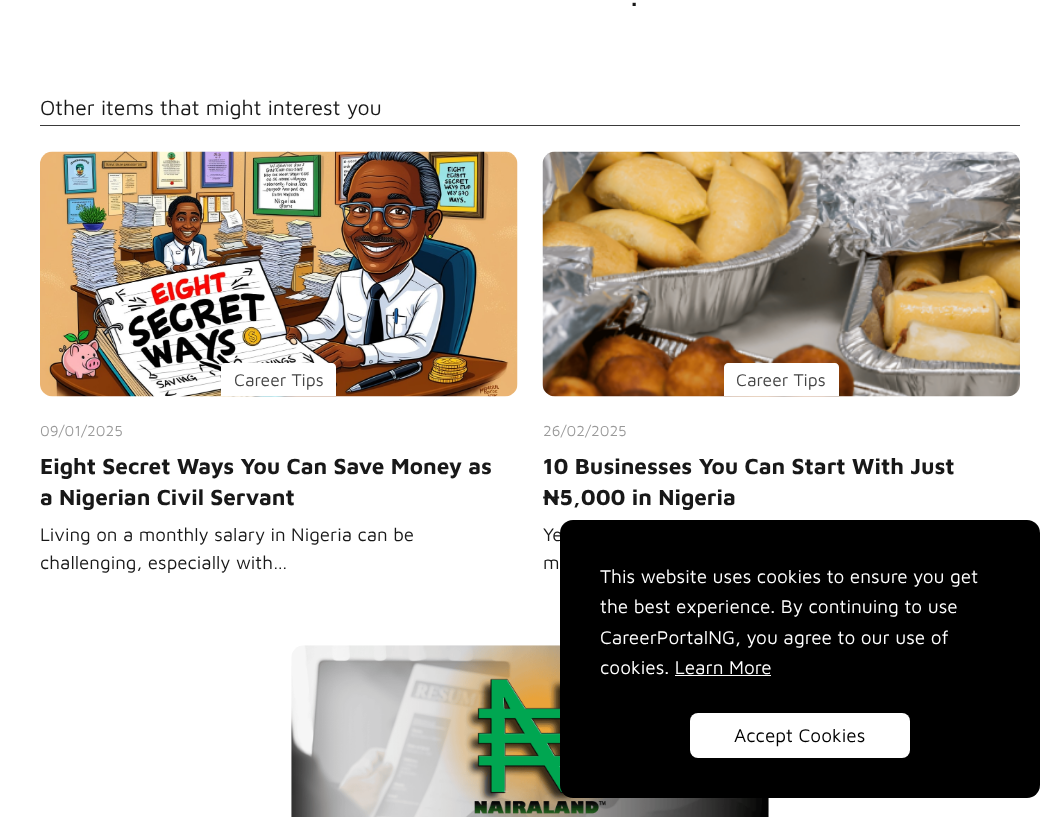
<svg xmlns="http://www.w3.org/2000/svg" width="1060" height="817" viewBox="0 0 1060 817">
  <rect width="100%" height="100%" fill="#ffffff"/>
  <text x="630" y="6" font-family="Maven Pro" font-size="32" fill="#181818">.</text>
  <rect x="40" y="125" width="980" height="1" fill="#3a3a3a"/>
  <text x="40" y="115" font-family="Maven Pro" font-size="21.25" fill="#181818">Other items that might interest you</text>
  <image x="40" y="151" width="478" height="246" href="img1.png"/>
  <path d="M225 363H332C334 363 336 365 336 367V396H221V367C221 365 223 363 225 363Z" fill="#ffffff"/>
  <text x="234" y="386" font-family="Maven Pro" font-size="17.5" fill="#444444">Career Tips</text>
  <text x="40" y="436" font-family="Maven Pro" font-size="15" fill="#999999">09/01/2025</text>
  <text x="40" y="474" font-family="Maven Pro" font-size="22.5" font-weight="bold" fill="#181818">Eight Secret Ways You Can Save Money as</text>
  <text x="40" y="505" font-family="Maven Pro" font-size="22.5" font-weight="bold" fill="#181818">a Nigerian Civil Servant</text>
  <text x="40" y="541" font-family="Maven Pro" font-size="18.75" fill="#181818">Living on a monthly salary in Nigeria can be</text>
  <text x="40" y="569" font-family="Maven Pro" font-size="18.75" fill="#181818">challenging, especially with…</text>
  <image x="542" y="151" width="478" height="246" href="img2.png"/>
  <path d="M728 363H835C837 363 839 365 839 367V396H724V367C724 365 726 363 728 363Z" fill="#ffffff"/>
  <text x="736" y="386" font-family="Maven Pro" font-size="17.5" fill="#444444">Career Tips</text>
  <text x="543" y="436" font-family="Maven Pro" font-size="15" fill="#999999">26/02/2025</text>
  <text x="543" y="474" font-family="Maven Pro" font-size="22.5" font-weight="bold" fill="#181818">10 Businesses You Can Start With Just</text>
  <text x="543" y="505" font-family="Maven Pro" font-size="22.5" font-weight="bold" fill="#181818">₦5,000 in Nigeria</text>
  <text x="543" y="541" font-family="Maven Pro" font-size="18.75" fill="#181818">Ye</text>
  <text x="543" y="569" font-family="Maven Pro" font-size="18.75" fill="#181818">m</text>
  <image x="291" y="645" width="478" height="172" href="img3.png"/>
  <rect x="560" y="520" width="480" height="278" rx="13" fill="#000000"/>
  <text x="600" y="583" font-family="Maven Pro" font-size="19" fill="#ffffff">This website uses cookies to ensure you get</text>
  <text x="600" y="613" font-family="Maven Pro" font-size="19" fill="#ffffff">the best experience. By continuing to use</text>
  <text x="600" y="644" font-family="Maven Pro" font-size="19" fill="#ffffff">CareerPortalNG, you agree to our use of</text>
  <text x="600" y="674" font-family="Maven Pro" font-size="19" fill="#ffffff">cookies. Learn More</text>
  <rect x="675" y="675" width="96" height="1" fill="#ffffff"/>
  <rect x="690" y="713" width="220" height="45" rx="8" fill="#ffffff"/>
  <text x="734" y="742" font-family="Maven Pro" font-size="19" fill="#000000">Accept Cookies</text>
</svg>
